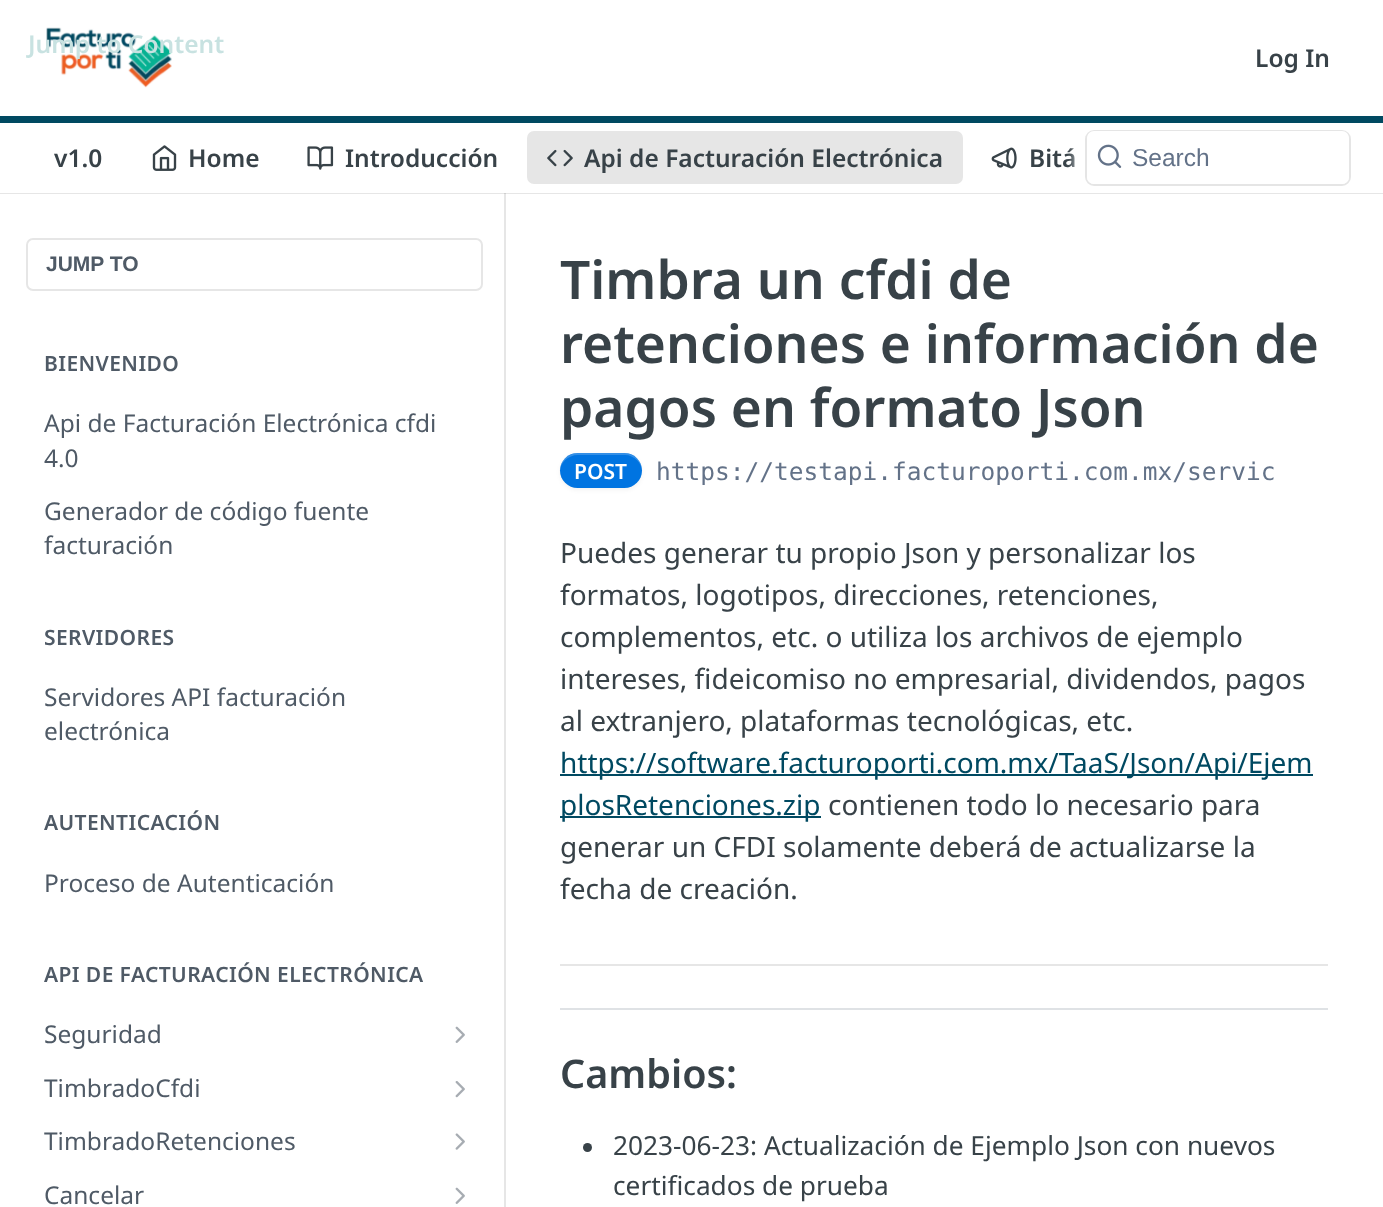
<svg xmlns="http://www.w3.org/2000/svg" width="1383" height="1207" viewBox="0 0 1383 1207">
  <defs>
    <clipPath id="clip1"><rect x="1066" y="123" width="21" height="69"/></clipPath>
    <filter id="blur1" x="-50%" y="-200%" width="200%" height="500%"><feGaussianBlur stdDeviation="5"/></filter>
    <filter id="blur2" x="-50%" y="-200%" width="200%" height="500%"><feGaussianBlur stdDeviation="2"/></filter>
  </defs>
  <rect width="100%" height="100%" fill="#ffffff"/>
  <rect x="0" y="193" width="1383" height="1" fill="#e6e6e6"/>
  <rect x="0" y="116" width="1383" height="7" fill="#004961"/>
  <image x="46" y="27" width="126" height="61" href="img1.png"/>
  <text x="28" y="53" font-family="Noto Sans" font-size="24.5" font-weight="600" fill="#c8e2e1">Jump to Content</text>
  <text x="1255" y="67" font-family="Noto Sans" font-size="24.5" font-weight="600" fill="#384248">Log In</text>
  <text x="54" y="167" font-family="Noto Sans" font-size="24.5" font-weight="600" fill="#384248">v1.0</text>
  <image x="152" y="145" width="25" height="26" href="img2.png"/>
  <text x="188" y="167" font-family="Noto Sans" font-size="24.5" font-weight="600" fill="#384248">Home</text>
  <image x="307" y="146" width="27" height="24" href="img3.png"/>
  <text x="345" y="167" font-family="Noto Sans" font-size="24.5" font-weight="600" fill="#384248">Introducción</text>
  <rect x="527" y="131" width="436" height="53" rx="7" fill="#e6e6e6"/>
  <image x="547" y="149" width="26" height="18" href="img4.png"/>
  <text x="584" y="167" font-family="Noto Sans" font-size="24.5" font-weight="600" fill="#384248">Api de Facturación Electrónica</text>
  <image x="991" y="147" width="26" height="22" href="img5.png"/>
  <text x="1029" y="167" font-family="Noto Sans" font-size="24.5" font-weight="600" fill="#384248">Bitá</text>
  <g clip-path="url(#clip1)">
    <rect x="1076" y="133" width="277" height="49" fill="#ffffff" filter="url(#blur1)"/>
  </g>
  <rect x="1086" y="131" width="264" height="54" rx="8" fill="none" stroke="#000000" stroke-opacity="0.1" stroke-width="2"/>
  <rect x="1087" y="131" width="262" height="53" rx="7" fill="#ffffff"/>
  <image x="1097" y="144" width="25" height="24" href="img6.png"/>
  <text x="1132" y="166" font-family="Liberation Sans" font-size="24.5" fill="#637288">Search</text>
  <rect x="504" y="193" width="2" height="1014" fill="#e6e6e6"/>
  <rect x="504" y="193" width="2" height="1" fill="#cfcfcf"/>
  <rect x="27" y="239" width="455" height="51" rx="6" fill="none" stroke="#e6e6e6" stroke-width="2"/>
  <text x="46" y="271" font-family="Liberation Sans" font-size="21" font-weight="bold" fill="#4f5a66">JUMP TO</text>
  <text x="44" y="371" font-family="Noto Sans" font-size="21" font-weight="600" letter-spacing="0.4" fill="#4f5a66">BIENVENIDO</text>
  <text x="44" y="432" font-family="Noto Sans" font-size="24.5" fill="#4f5a66">Api de Facturación Electrónica cfdi</text>
  <text x="44" y="467" font-family="Noto Sans" font-size="24.5" fill="#4f5a66">4.0</text>
  <text x="44" y="520" font-family="Noto Sans" font-size="24.5" fill="#4f5a66">Generador de código fuente</text>
  <text x="44" y="554" font-family="Noto Sans" font-size="24.5" fill="#4f5a66">facturación</text>
  <text x="44" y="645" font-family="Noto Sans" font-size="21" font-weight="600" letter-spacing="0.4" fill="#4f5a66">SERVIDORES</text>
  <text x="44" y="706" font-family="Noto Sans" font-size="24.5" fill="#4f5a66">Servidores API facturación</text>
  <text x="44" y="740" font-family="Noto Sans" font-size="24.5" fill="#4f5a66">electrónica</text>
  <text x="44" y="830" font-family="Noto Sans" font-size="21" font-weight="600" letter-spacing="0.4" fill="#4f5a66">AUTENTICACIÓN</text>
  <text x="44" y="892" font-family="Noto Sans" font-size="24.5" fill="#4f5a66">Proceso de Autenticación</text>
  <text x="44" y="982" font-family="Noto Sans" font-size="21" font-weight="600" letter-spacing="0.4" fill="#4f5a66">API DE FACTURACIÓN ELECTRÓNICA</text>
  <text x="44" y="1043" font-family="Noto Sans" font-size="24.5" fill="#4f5a66">Seguridad</text>
  <image x="455" y="1026" width="10" height="17" href="img7.png"/>
  <text x="44" y="1097" font-family="Noto Sans" font-size="24.5" fill="#4f5a66">TimbradoCfdi</text>
  <image x="455" y="1081" width="10" height="17" href="img8.png"/>
  <text x="44" y="1150" font-family="Noto Sans" font-size="24.5" fill="#4f5a66">TimbradoRetenciones</text>
  <image x="455" y="1133" width="10" height="17" href="img9.png"/>
  <text x="44" y="1204" font-family="Noto Sans" font-size="24.5" fill="#4f5a66">Cancelar</text>
  <image x="455" y="1187" width="10" height="17" href="img7.png"/>
  <rect x="560" y="964" width="768" height="2" fill="#e6e6e6"/>
  <text x="560" y="299" font-family="Noto Sans" font-size="53.25" font-weight="600" fill="#384248">Timbra un cfdi de</text>
  <text x="560" y="363" font-family="Noto Sans" font-size="53.25" font-weight="600" fill="#384248">retenciones e información de</text>
  <text x="560" y="427" font-family="Noto Sans" font-size="53.25" font-weight="600" fill="#384248">pagos en formato Json</text>
  <rect x="560" y="455" width="82" height="35" rx="17.5" fill="#000000" fill-opacity="0.05" filter="url(#blur2)"/>
  <rect x="560" y="453" width="82" height="35" rx="17.5" fill="#0074e1"/>
  <path d="M578 455H625C634 455 642 463 642 471V470C642 461 634 453 624 453H578C568 453 560 461 560 470V471C560 463 568 455 578 455Z" fill="#ffffff" fill-opacity="0.2"/>
  <text x="574" y="479" font-family="Noto Sans" font-size="21" font-weight="600" fill="#ffffff">POST</text>
  <text x="656" y="480" font-family="DejaVu Sans Mono" font-size="24.5" fill="#637288">https://testapi.facturoporti.com.mx/servic</text>
  <text x="560" y="563" font-family="Noto Sans" font-size="28" fill="#384248">Puedes generar tu propio Json y personalizar los</text>
  <text x="560" y="605" font-family="Noto Sans" font-size="28" fill="#384248">formatos, logotipos, direcciones, retenciones,</text>
  <text x="560" y="647" font-family="Noto Sans" font-size="28" fill="#384248">complementos, etc. o utiliza los archivos de ejemplo</text>
  <text x="560" y="689" font-family="Noto Sans" font-size="28" fill="#384248">intereses, fideicomiso no empresarial, dividendos, pagos</text>
  <text x="560" y="731" font-family="Noto Sans" font-size="28" fill="#384248">al extranjero, plataformas tecnológicas, etc.</text>
  <rect x="560" y="774" width="753" height="2" fill="#004961"/>
  <text x="560" y="773" font-family="Noto Sans" font-size="28" fill="#004961">https://software.facturoporti.com.mx/TaaS/Json/Api/Ejem</text>
  <rect x="560" y="816" width="261" height="2" fill="#004961"/>
  <text x="560" y="815" font-family="Noto Sans" font-size="28" fill="#004961">plosRetenciones.zip</text>
  <text x="828" y="815" font-family="Noto Sans" font-size="28" fill="#384248">contienen todo lo necesario para</text>
  <text x="560" y="857" font-family="Noto Sans" font-size="28" fill="#384248">generar un CFDI solamente deberá de actualizarse la</text>
  <text x="560" y="899" font-family="Noto Sans" font-size="28" fill="#384248">fecha de creación.</text>
  <rect x="560" y="1008" width="768" height="2" fill="#dfe2e5"/>
  <text x="560" y="1088" font-family="Noto Sans" font-size="39.5" font-weight="600" fill="#384248">Cambios:</text>
  <circle cx="587.5" cy="1147.5" r="4.5" fill="#384248"/>
  <text x="613" y="1155" font-family="Noto Sans" font-size="26.25" fill="#384248">2023-06-23: Actualización de Ejemplo Json con nuevos</text>
  <text x="613" y="1195" font-family="Noto Sans" font-size="26.25" fill="#384248">certificados de prueba</text>
</svg>
